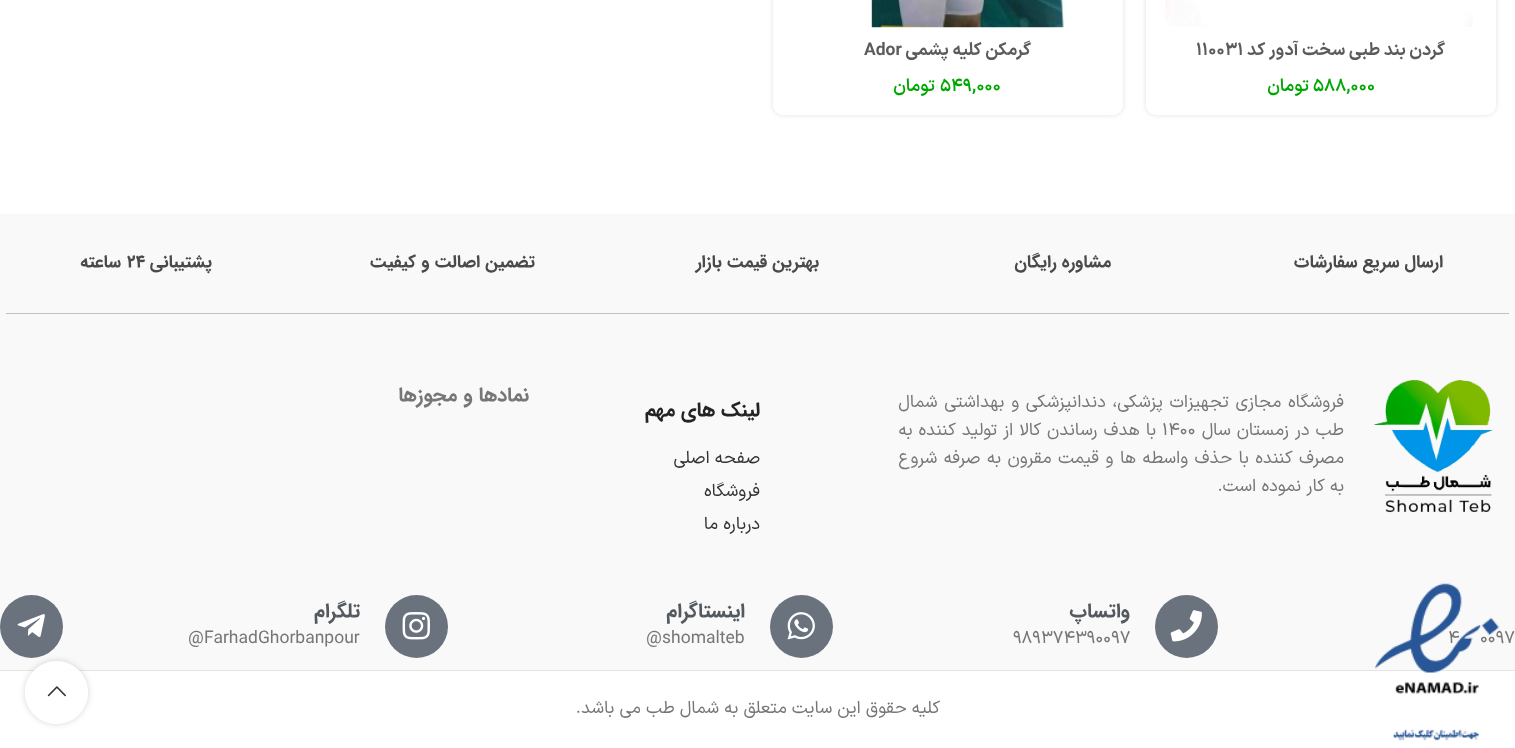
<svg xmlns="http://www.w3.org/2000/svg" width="1515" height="748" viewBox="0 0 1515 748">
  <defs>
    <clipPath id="clip1"><path d="M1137 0H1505V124H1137ZM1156-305H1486C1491.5-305 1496-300.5 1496-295V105C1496 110.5 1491.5 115 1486 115H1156C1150.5 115 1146 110.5 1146 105V-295C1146-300.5 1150.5-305 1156-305Z" clip-rule="evenodd"/></clipPath>
    <filter id="blur1" x="-50%" y="-200%" width="200%" height="500%"><feGaussianBlur stdDeviation="2.5"/></filter>
    <clipPath id="clip2"><path d="M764 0H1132V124H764ZM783-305H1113C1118.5-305 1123-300.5 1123-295V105C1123 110.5 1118.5 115 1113 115H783C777.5 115 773 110.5 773 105V-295C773-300.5 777.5-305 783-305Z" clip-rule="evenodd"/></clipPath>
    <clipPath id="clip3"><path d="M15 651H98V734H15ZM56.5 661C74 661 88 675 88 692.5C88 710 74 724 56.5 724C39 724 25 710 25 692.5C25 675 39 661 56.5 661Z" clip-rule="evenodd"/></clipPath>
    <filter id="blur2" x="-50%" y="-200%" width="200%" height="500%"><feGaussianBlur stdDeviation="3"/></filter>
  </defs>
  <rect width="100%" height="100%" fill="#ffffff"/>
  <g clip-path="url(#clip1)">
    <rect x="1146" y="-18" width="350" height="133" rx="10" fill="#000000" fill-opacity="0.12" filter="url(#blur1)"/>
  </g>
  <image x="1165" y="0" width="308" height="27" href="img1.png"/>
  <text x="1445" y="55" font-family="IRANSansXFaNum" font-size="17.5" font-weight="bold" direction="rtl" fill="#5b5b5b">گردن بند طبی سخت آدور کد</text>
  <text x="1196" y="55" font-family="IRANSansXFaNum" font-size="17.5" font-weight="bold" fill="#5b5b5b">۱۱۰۰۳۱</text>
  <text x="1313" y="91" font-family="IRANSansXFaNum" font-size="17.5" font-weight="600" fill="#00a700">۵۸۸,۰۰۰</text>
  <text x="1309" y="91" font-family="IRANSansXFaNum" font-size="17.5" font-weight="600" direction="rtl" fill="#00a700">تومان</text>
  <g clip-path="url(#clip2)">
    <rect x="773" y="-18" width="350" height="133" rx="10" fill="#000000" fill-opacity="0.12" filter="url(#blur1)"/>
  </g>
  <image x="871" y="0" width="194" height="28" href="img2.png"/>
  <text x="1031" y="55" font-family="IRANSansXFaNum" font-size="17.5" font-weight="bold" direction="rtl" fill="#5b5b5b">گرمکن کلیه پشمی</text>
  <text x="864" y="55" font-family="IRANSansXFaNum" font-size="17.5" font-weight="bold" fill="#5b5b5b">Ador</text>
  <text x="940" y="91" font-family="IRANSansXFaNum" font-size="17.5" font-weight="600" fill="#00a700">۵۴۹,۰۰۰</text>
  <text x="935" y="91" font-family="IRANSansXFaNum" font-size="17.5" font-weight="600" direction="rtl" fill="#00a700">تومان</text>
  <rect x="0" y="214" width="1515" height="456" fill="#f9f9f9"/>
  <rect x="6" y="313" width="1503" height="1" fill="#c2c2c2"/>
  <text x="1443" y="267" font-family="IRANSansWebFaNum" font-size="17.5" font-weight="bold" direction="rtl" fill="#4a4a4a">ارسال سریع سفارشات</text>
  <text x="1111" y="267" font-family="IRANSansWebFaNum" font-size="17.5" font-weight="bold" direction="rtl" fill="#4a4a4a">مشاوره رایگان</text>
  <text x="819" y="267" font-family="IRANSansWebFaNum" font-size="17.5" font-weight="bold" direction="rtl" fill="#4a4a4a">بهترین قیمت بازار</text>
  <text x="535" y="267" font-family="IRANSansWebFaNum" font-size="17.5" font-weight="bold" direction="rtl" fill="#4a4a4a">تضمین اصالت و کیفیت</text>
  <text x="212" y="267" font-family="IRANSansWebFaNum" font-size="17.5" font-weight="bold" direction="rtl" fill="#4a4a4a">پشتیبانی</text>
  <text x="127" y="267" font-family="IRANSansWebFaNum" font-size="17.5" font-weight="bold" fill="#4a4a4a">۲۴</text>
  <text x="121" y="267" font-family="IRANSansWebFaNum" font-size="17.5" font-weight="bold" direction="rtl" fill="#4a4a4a">ساعته</text>
  <image x="1373" y="380" width="120" height="133" href="img3.png"/>
  <text x="1344" y="407" word-spacing="1.5" font-family="IRANSansXFaNum" font-size="17.5" direction="rtl" fill="#767676">فروشگاه مجازی تجهیزات پزشکی، دندانپزشکی و بهداشتی شمال</text>
  <text x="1344" y="435" word-spacing="0.75" font-family="IRANSansXFaNum" font-size="17.5" direction="rtl" fill="#767676">طب در زمستان سال</text>
  <text x="1162" y="435" font-family="IRANSansXFaNum" font-size="17.5" fill="#767676">۱۴۰۰</text>
  <text x="1156" y="435" word-spacing="0.75" font-family="IRANSansXFaNum" font-size="17.5" direction="rtl" fill="#767676">با هدف رساندن کالا از تولید کننده به</text>
  <text x="1344" y="463" word-spacing="1.25" font-family="IRANSansXFaNum" font-size="17.5" direction="rtl" fill="#767676">مصرف کننده با حذف واسطه ها و قیمت مقرون به صرفه شروع</text>
  <text x="1344" y="491" font-family="IRANSansXFaNum" font-size="17.5" direction="rtl" fill="#767676">به کار نموده است.</text>
  <text x="760" y="416" font-family="IRANSansWebFaNum" font-size="20" font-weight="bold" direction="rtl" fill="#242424">لینک های مهم</text>
  <text x="760" y="463" font-family="IRANSansXFaNum" font-size="17.5" direction="rtl" fill="#333333">صفحه اصلی</text>
  <text x="760" y="496" font-family="IRANSansXFaNum" font-size="17.5" direction="rtl" fill="#333333">فروشگاه</text>
  <text x="760" y="529" font-family="IRANSansXFaNum" font-size="17.5" direction="rtl" fill="#333333">درباره ما</text>
  <text x="529" y="401" font-family="IRANSansWebFaNum" font-size="20" font-weight="bold" direction="rtl" fill="#767676">نمادها و مجوزها</text>
  <text x="1480" y="643" font-family="IRANSansXFaNum" font-size="17.5" fill="#767676">۰۰۹۷</text>
  <text x="1448" y="643" font-family="IRANSansXFaNum" font-size="17.5" fill="#767676">۴</text>
  <circle cx="1186.5" cy="626.5" r="31.5" fill="#69727d"/>
  <image x="1170" y="610" width="32" height="32" href="img4.png"/>
  <text x="1130" y="617" font-family="IRANSansWebFaNum" font-size="20" font-weight="bold" direction="rtl" fill="#54595f">واتساپ</text>
  <text x="1013" y="643" font-family="IRANSansXFaNum" font-size="17.5" fill="#767676">۹۸۹۳۷۴۳۹۰۰۹۷</text>
  <circle cx="801.5" cy="626.5" r="31.5" fill="#69727d"/>
  <image x="787" y="612" width="28" height="28" href="img5.png"/>
  <text x="745" y="617" font-family="IRANSansWebFaNum" font-size="20" font-weight="bold" direction="rtl" fill="#54595f">اینستاگرام</text>
  <text x="646" y="643" font-family="IRANSansXFaNum" font-size="17.5" fill="#767676">@shomalteb</text>
  <circle cx="416.5" cy="626.5" r="31.5" fill="#69727d"/>
  <image x="402" y="612" width="28" height="28" href="img6.png"/>
  <text x="360" y="617" font-family="IRANSansWebFaNum" font-size="20" font-weight="bold" direction="rtl" fill="#54595f">تلگرام</text>
  <text x="188" y="643" font-family="IRANSansXFaNum" font-size="17.5" fill="#767676">@FarhadGhorbanpour</text>
  <circle cx="31.5" cy="626.5" r="31.5" fill="#69727d"/>
  <image x="17" y="614" width="28" height="23" href="img7.png"/>
  <rect x="0" y="670" width="1515" height="1" fill="#e4e4e4"/>
  <text x="940" y="713" font-family="IRANSansXFaNum" font-size="17.5" direction="rtl" fill="#767676">کلیه حقوق این سایت متعلق به شمال طب می باشد.</text>
  <image x="1374" y="583" width="125" height="158" href="img8.png"/>
  <g clip-path="url(#clip3)">
    <rect x="25" y="661" width="63" height="63" rx="31.5" fill="#000000" fill-opacity="0.17" filter="url(#blur2)"/>
  </g>
  <circle cx="56.5" cy="692.5" r="31.5" fill="#ffffff" fill-opacity="0.9"/>
  <image x="47" y="686" width="19" height="11" href="img9.png"/>
</svg>
